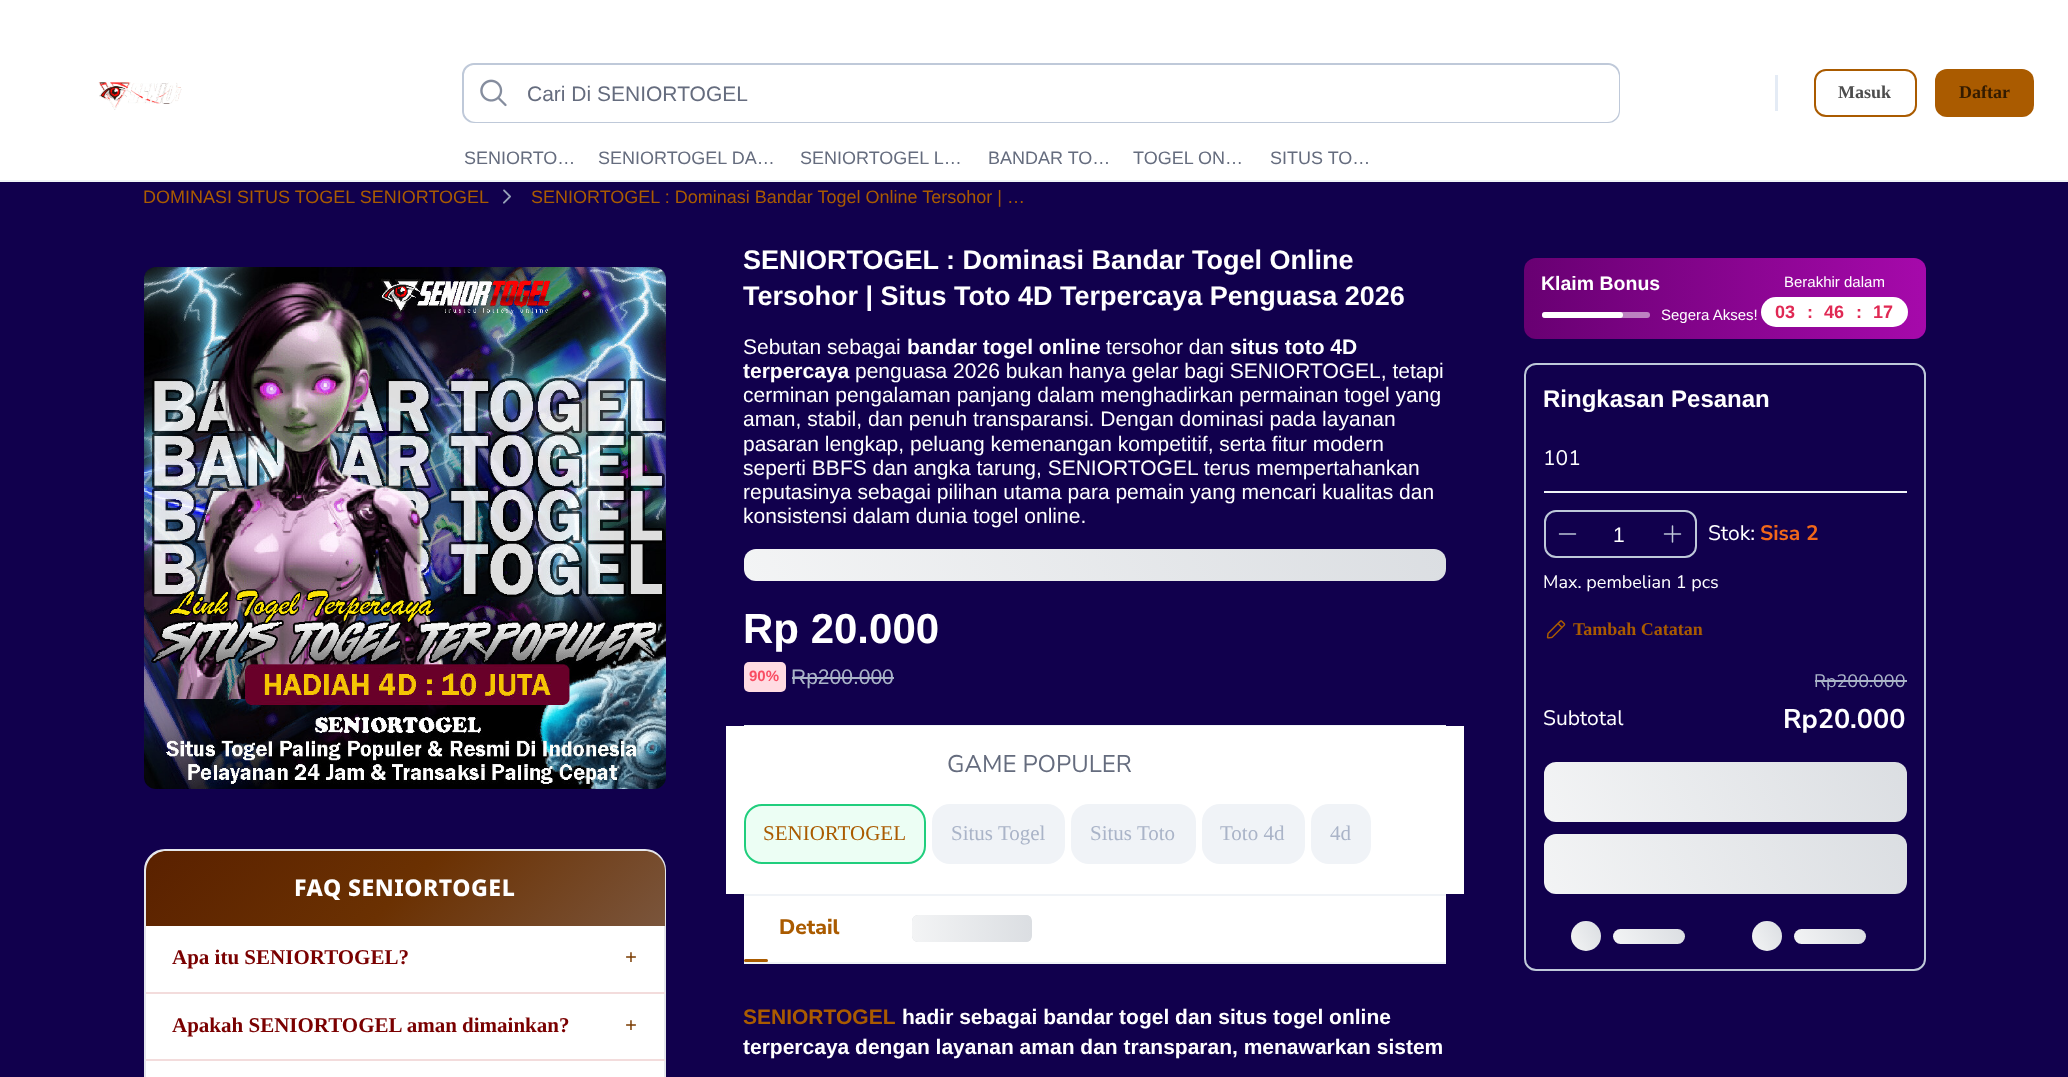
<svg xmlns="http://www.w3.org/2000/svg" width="2068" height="1077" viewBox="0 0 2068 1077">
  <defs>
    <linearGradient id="g1" gradientUnits="userSpaceOnUse" x1="801" y1="702" x2="1389" y2="427"><stop offset="0" stop-color="#f3f4f5"/><stop offset="1" stop-color="#dbdee2"/></linearGradient>
    <linearGradient id="g2" gradientUnits="userSpaceOnUse" x1="1524" y1="299" x2="1926" y2="299"><stop offset="0" stop-color="#680072"/><stop offset="1" stop-color="#a609ab"/></linearGradient>
    <linearGradient id="g3" gradientUnits="userSpaceOnUse" x1="1564" y1="867" x2="1886" y2="717"><stop offset="0" stop-color="#f3f4f5"/><stop offset="1" stop-color="#dbdee2"/></linearGradient>
    <linearGradient id="g4" gradientUnits="userSpaceOnUse" x1="1564" y1="939" x2="1886" y2="789"><stop offset="0" stop-color="#f3f4f5"/><stop offset="1" stop-color="#dbdee2"/></linearGradient>
    <linearGradient id="g5" gradientUnits="userSpaceOnUse" x1="1568" y1="945" x2="1603" y2="927"><stop offset="0" stop-color="#f3f4f5"/><stop offset="1" stop-color="#dbdee2"/></linearGradient>
    <linearGradient id="g6" gradientUnits="userSpaceOnUse" x1="1616" y1="951" x2="1681" y2="921"><stop offset="0" stop-color="#f3f4f5"/><stop offset="1" stop-color="#dbdee2"/></linearGradient>
    <linearGradient id="g7" gradientUnits="userSpaceOnUse" x1="1749" y1="945" x2="1785" y2="927"><stop offset="0" stop-color="#f3f4f5"/><stop offset="1" stop-color="#dbdee2"/></linearGradient>
    <linearGradient id="g8" gradientUnits="userSpaceOnUse" x1="1798" y1="951" x2="1862" y2="921"><stop offset="0" stop-color="#f3f4f5"/><stop offset="1" stop-color="#dbdee2"/></linearGradient>
    <linearGradient id="g9" gradientUnits="userSpaceOnUse" x1="257" y1="740" x2="554" y2="1037"><stop offset="0" stop-color="#5a2100"/><stop offset="0.5" stop-color="#6b3102"/><stop offset="1" stop-color="#7a553c"/></linearGradient>
    <clipPath id="clip1"><rect x="912" y="915" width="120" height="27" rx="6"/></clipPath>
    <linearGradient id="g10" gradientUnits="userSpaceOnUse" x1="912" y1="930" x2="1031" y2="927"><stop offset="0" stop-color="#f3f4f5"/><stop offset="1" stop-color="#dbdee2"/></linearGradient>
  </defs>
  <rect width="100%" height="100%" fill="#11004d"/>
  <rect x="0" y="0" width="2068" height="180" fill="#ffffff"/>
  <rect x="0" y="180" width="2068" height="2" fill="#f0f3f7"/>
  <image x="98" y="82" width="84" height="28" href="img1.png"/>
  <rect x="463" y="64" width="1156" height="58" rx="11" fill="none" stroke="#bfc9d9" stroke-width="2"/>
  <rect x="464" y="65" width="1155" height="57" rx="12" fill="#ffffff"/>
  <image x="480" y="79" width="27" height="28" href="img2.png"/>
  <text x="527" y="101" font-family="Liberation Sans" font-size="21" fill="#656c7e">Cari Di SENIORTOGEL</text>
  <rect x="1775" y="75" width="3" height="36" fill="#e4ebf5"/>
  <rect x="1815" y="70" width="101" height="46" rx="11" fill="none" stroke="#aa5b00" stroke-width="2"/>
  <text x="1838" y="98" font-family="Liberation Serif" font-size="18" font-weight="bold" fill="#4d4d4d">Masuk</text>
  <rect x="1935" y="69" width="99" height="48" rx="12" fill="#aa5b00"/>
  <text x="1959" y="98" font-family="Liberation Serif" font-size="18" font-weight="bold" fill="#331b00">Daftar</text>
  <text x="464" y="164" font-family="Liberation Sans" font-size="18" fill="#656c7e">SENIORTO…</text>
  <text x="598" y="164" font-family="Liberation Sans" font-size="18" fill="#656c7e">SENIORTOGEL DA…</text>
  <text x="800" y="164" font-family="Liberation Sans" font-size="18" fill="#656c7e">SENIORTOGEL L…</text>
  <text x="988" y="164" font-family="Liberation Sans" font-size="18" fill="#656c7e">BANDAR TO…</text>
  <text x="1133" y="164" font-family="Liberation Sans" font-size="18" fill="#656c7e">TOGEL ON…</text>
  <text x="1270" y="164" font-family="Liberation Sans" font-size="18" fill="#656c7e">SITUS TO…</text>
  <text x="143" y="203" font-family="Liberation Sans" font-size="18" fill="#aa5b00">DOMINASI SITUS TOGEL SENIORTOGEL</text>
  <image x="503" y="189" width="8" height="15" href="img3.png"/>
  <text x="531" y="203" font-family="Liberation Sans" font-size="18" fill="#aa5b00">SENIORTOGEL : Dominasi Bandar Togel Online Tersohor | …</text>
  <text x="743" y="269" font-family="Liberation Sans" font-size="27" font-weight="bold" fill="#ffffff">SENIORTOGEL : Dominasi Bandar Togel Online</text>
  <text x="743" y="305" font-family="Liberation Sans" font-size="27" font-weight="bold" fill="#ffffff">Tersohor | Situs Toto 4D Terpercaya Penguasa 2026</text>
  <text x="743" y="354" font-family="Liberation Sans" font-size="21" fill="#ffffff">Sebutan sebagai</text>
  <text x="907" y="354" font-family="Liberation Sans" font-size="21" font-weight="bold" fill="#ffffff">bandar togel online</text>
  <text x="1106" y="354" font-family="Liberation Sans" font-size="21" fill="#ffffff">tersohor dan</text>
  <text x="1230" y="354" font-family="Liberation Sans" font-size="21" font-weight="bold" fill="#ffffff">situs toto 4D</text>
  <text x="743" y="378" font-family="Liberation Sans" font-size="21" font-weight="bold" fill="#ffffff">terpercaya</text>
  <text x="855" y="378" font-family="Liberation Sans" font-size="21" fill="#ffffff">penguasa 2026 bukan hanya gelar bagi SENIORTOGEL, tetapi</text>
  <text x="743" y="402" font-family="Liberation Sans" font-size="21" fill="#ffffff">cerminan pengalaman panjang dalam menghadirkan permainan togel yang</text>
  <text x="743" y="426" font-family="Liberation Sans" font-size="21" fill="#ffffff">aman, stabil, dan penuh transparansi. Dengan dominasi pada layanan</text>
  <text x="743" y="451" font-family="Liberation Sans" font-size="21" fill="#ffffff">pasaran lengkap, peluang kemenangan kompetitif, serta fitur modern</text>
  <text x="743" y="475" font-family="Liberation Sans" font-size="21" fill="#ffffff">seperti BBFS dan angka tarung, SENIORTOGEL terus mempertahankan</text>
  <text x="743" y="499" font-family="Liberation Sans" font-size="21" fill="#ffffff">reputasinya sebagai pilihan utama para pemain yang mencari kualitas dan</text>
  <text x="743" y="523" font-family="Liberation Sans" font-size="21" fill="#ffffff">konsistensi dalam dunia togel online.</text>
  <rect x="744" y="549" width="702" height="32" rx="12" fill="url(#g1)"/>
  <text x="743" y="643" font-family="Liberation Sans" font-size="42" font-weight="bold" fill="#ffffff">Rp 20.000</text>
  <rect x="744" y="662" width="42" height="30" rx="5" fill="#ffdbe2"/>
  <text x="749" y="681" font-family="Liberation Sans" font-size="15" font-weight="bold" fill="#f94d63">90%</text>
  <text x="791" y="684" font-family="Liberation Sans" font-size="21" fill="#aab4c8">Rp200.000</text>
  <rect x="792" y="677" width="102" height="2" fill="#aab4c8"/>
  <rect x="1524" y="258" width="402" height="81" rx="12" fill="url(#g2)"/>
  <text x="1541" y="290" font-family="Liberation Sans" font-size="19.5" font-weight="bold" fill="#ffffff">Klaim Bonus</text>
  <rect x="1542" y="312" width="108" height="6" rx="3" fill="#ffffff" fill-opacity="0.5"/>
  <rect x="1542" y="312" width="81" height="6" rx="3" fill="#ffffff"/>
  <text x="1661" y="320" font-family="Liberation Sans" font-size="15" fill="#ffffff">Segera Akses!</text>
  <text x="1784" y="287" font-family="Liberation Sans" font-size="15" fill="#ffffff">Berakhir dalam</text>
  <rect x="1761" y="297" width="147" height="30" rx="15" fill="#ffffff"/>
  <text x="1775" y="318" font-family="Liberation Sans" font-size="18" font-weight="bold" fill="#e02954">03</text>
  <text x="1807" y="318" font-family="Liberation Sans" font-size="18" font-weight="bold" fill="#e02954">:</text>
  <text x="1824" y="318" font-family="Liberation Sans" font-size="18" font-weight="bold" fill="#e02954">46</text>
  <text x="1856" y="318" font-family="Liberation Sans" font-size="18" font-weight="bold" fill="#e02954">:</text>
  <text x="1873" y="318" font-family="Liberation Sans" font-size="18" font-weight="bold" fill="#e02954">17</text>
  <rect x="1525" y="364" width="400" height="606" rx="11" fill="none" stroke="#bfc9d9" stroke-width="2"/>
  <text x="1543" y="407" font-family="Liberation Sans" font-size="24" font-weight="bold" fill="#ffffff">Ringkasan Pesanan</text>
  <rect x="1544" y="491" width="363" height="2" fill="#f0f3f7"/>
  <text x="1543" y="465" font-family="Nunito Sans" font-size="21" fill="#ffffff">101</text>
  <rect x="1545" y="511" width="151" height="46" rx="11" fill="none" stroke="#bfc9d9" stroke-width="2"/>
  <image x="1558" y="533" width="19" height="2" href="img4.png"/>
  <text x="1613" y="542" font-family="Liberation Sans" font-size="21" fill="#ffffff">1</text>
  <image x="1663" y="525" width="19" height="18" href="img5.png"/>
  <text x="1708" y="540" font-family="Nunito Sans" font-size="21" fill="#ffffff">Stok:</text>
  <text x="1760" y="540" font-family="Nunito Sans" font-size="21" font-weight="bold" fill="#f36819">Sisa 2</text>
  <text x="1543" y="588" font-family="Nunito Sans" font-size="18" fill="#ffffff">Max. pembelian 1 pcs</text>
  <image x="1546" y="620" width="20" height="19" href="img6.png"/>
  <text x="1573" y="635" font-family="Liberation Serif" font-size="18" font-weight="bold" fill="#aa5b00">Tambah Catatan</text>
  <text x="1814" y="687" font-family="Nunito Sans" font-size="18" fill="#aab4c8">Rp200.000</text>
  <rect x="1815" y="680" width="92" height="2" fill="#aab4c8"/>
  <text x="1543" y="725" font-family="Nunito Sans" font-size="21" fill="#ffffff">Subtotal</text>
  <text x="1783" y="728" font-family="Nunito Sans" font-size="27" font-weight="bold" fill="#ffffff">Rp20.000</text>
  <rect x="1544" y="762" width="363" height="60" rx="12" fill="url(#g3)"/>
  <rect x="1544" y="834" width="363" height="60" rx="12" fill="url(#g4)"/>
  <circle cx="1586" cy="936" r="15" fill="url(#g5)"/>
  <rect x="1613" y="929" width="72" height="15" rx="7.5" fill="url(#g6)"/>
  <circle cx="1767" cy="936" r="15" fill="url(#g7)"/>
  <rect x="1794" y="929" width="72" height="15" rx="7.5" fill="url(#g8)"/>
  <rect x="744" y="725" width="702" height="1" fill="#f0f3f7"/>
  <rect x="726" y="726" width="738" height="168" fill="#ffffff"/>
  <text x="947" y="772" font-family="Nunito Sans" font-size="24" fill="#656c7e">GAME POPULER</text>
  <rect x="745" y="805" width="180" height="58" rx="17" fill="#ecfef4" stroke="#20ce7d" stroke-width="2"/>
  <text x="763" y="840" font-family="Liberation Serif" font-size="21" fill="#aa5b00">SENIORTOGEL</text>
  <rect x="932" y="804" width="133" height="60" rx="18" fill="#f0f3f7"/>
  <text x="951" y="840" font-family="Liberation Serif" font-size="21" fill="#aab4c8">Situs Togel</text>
  <rect x="1071" y="804" width="125" height="60" rx="18" fill="#f0f3f7"/>
  <text x="1090" y="840" font-family="Liberation Serif" font-size="21" fill="#aab4c8">Situs Toto</text>
  <rect x="1202" y="804" width="103" height="60" rx="18" fill="#f0f3f7"/>
  <text x="1220" y="840" font-family="Liberation Serif" font-size="21" fill="#aab4c8">Toto 4d</text>
  <rect x="1311" y="804" width="60" height="60" rx="18" fill="#f0f3f7"/>
  <text x="1330" y="840" font-family="Liberation Serif" font-size="21" fill="#aab4c8">4d</text>
  <image x="144" y="267" width="522" height="522" href="img7.png"/>
  <rect x="145" y="850" width="520" height="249" rx="20" fill="#ffffff" stroke="#e5e7eb" stroke-width="2"/>
  <path d="M166 851H645C656 851 665 860 665 871V926H146V871C146 860 155 851 166 851Z" fill="url(#g9)"/>
  <text x="294" y="896" font-family="Noto Sans" font-size="23" font-weight="800" letter-spacing="0.5" fill="#ffffff">FAQ SENIORTOGEL</text>
  <rect x="146" y="992" width="519" height="2" fill="#f3dcdc"/>
  <text x="172" y="964" font-family="Liberation Serif" font-size="21" font-weight="bold" fill="#7a0000">Apa itu SENIORTOGEL?</text>
  <text x="625" y="964" font-family="Liberation Serif" font-size="21" font-weight="bold" fill="#7a3b00">+</text>
  <rect x="146" y="1059" width="519" height="2" fill="#f3dcdc"/>
  <text x="172" y="1032" font-family="Liberation Serif" font-size="21" font-weight="bold" fill="#7a0000">Apakah SENIORTOGEL aman dimainkan?</text>
  <text x="625" y="1032" font-family="Liberation Serif" font-size="21" font-weight="bold" fill="#7a3b00">+</text>
  <rect x="744" y="894" width="702" height="2" fill="#f0f3f7"/>
  <rect x="744" y="896" width="702" height="66" fill="#ffffff"/>
  <rect x="744" y="962" width="702" height="2" fill="#f0f3f7"/>
  <text x="779" y="934" font-family="Nunito Sans" font-size="21" font-weight="800" fill="#aa5b00">Detail</text>
  <rect x="912" y="915" width="120" height="27" rx="6" fill="#dbdee2"/>
  <g clip-path="url(#clip1)">
    <path d="M918 915H1031V942H918C914.5 942 912 939.5 912 936V921C912 917.5 914.5 915 918 915Z" fill="url(#g10)"/>
  </g>
  <rect x="744" y="959" width="24" height="3" rx="1.5" fill="#aa5b00"/>
  <text x="743" y="1024" font-family="Liberation Sans" font-size="21" font-weight="bold" fill="#aa5b00">SENIORTOGEL</text>
  <text x="902" y="1024" font-family="Liberation Sans" font-size="21" font-weight="bold" fill="#ffffff">hadir sebagai bandar togel dan situs togel online</text>
  <text x="743" y="1054" font-family="Liberation Sans" font-size="21" font-weight="bold" fill="#ffffff">terpercaya dengan layanan aman dan transparan, menawarkan sistem</text>
</svg>
